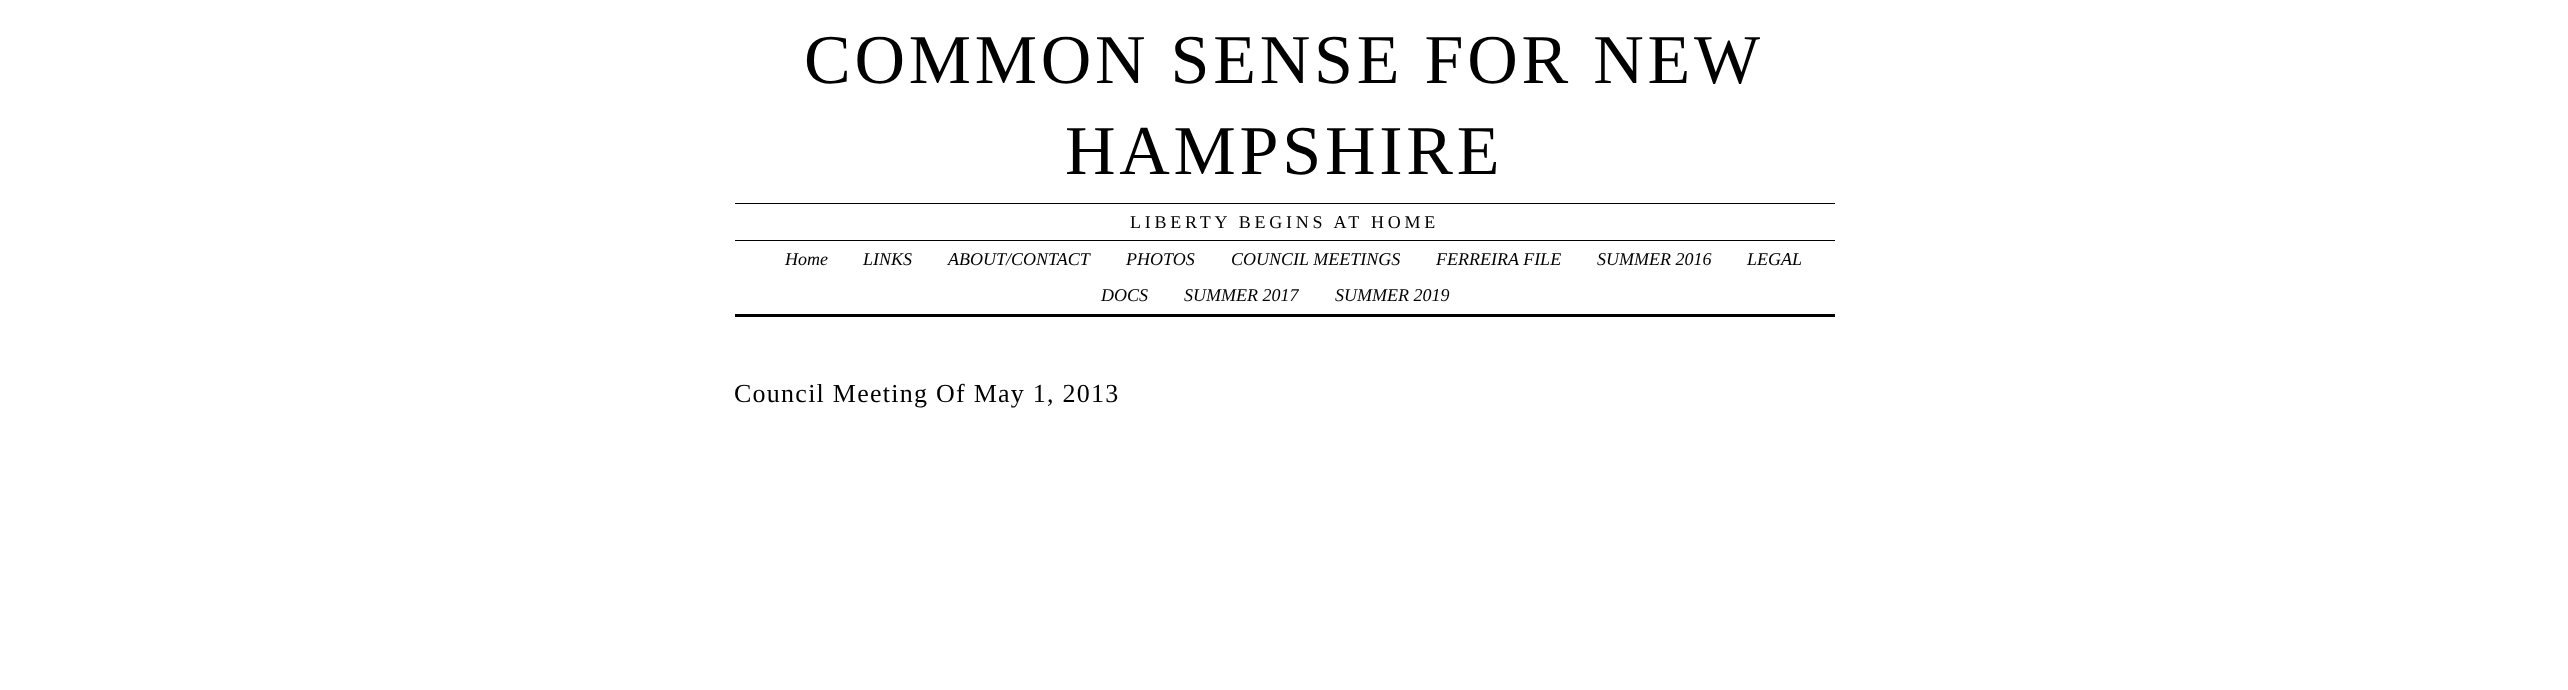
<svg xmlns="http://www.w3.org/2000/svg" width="2568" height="690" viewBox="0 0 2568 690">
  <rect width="100%" height="100%" fill="#ffffff"/>
  <text x="804" y="83" font-family="Liberation Serif" font-size="70" letter-spacing="3.75" fill="#000000">COMMON SENSE FOR NEW</text>
  <text x="1065" y="174" font-family="Liberation Serif" font-size="70" letter-spacing="3.75" fill="#000000">HAMPSHIRE</text>
  <rect x="735" y="203" width="1100" height="1" fill="#000000"/>
  <text x="1130" y="228" font-family="Liberation Serif" font-size="18" letter-spacing="3.75" fill="#000000">LIBERTY BEGINS AT HOME</text>
  <rect x="735" y="240" width="1100" height="1" fill="#000000"/>
  <rect x="735" y="314" width="1100" height="3" fill="#000000"/>
  <text x="785" y="265" font-family="Liberation Serif" font-size="18" font-style="italic" fill="#000000">Home</text>
  <text x="863" y="265" font-family="Liberation Serif" font-size="18" font-style="italic" fill="#000000">LINKS</text>
  <text x="948" y="265" font-family="Liberation Serif" font-size="18" font-style="italic" fill="#000000">ABOUT/CONTACT</text>
  <text x="1126" y="265" font-family="Liberation Serif" font-size="18" font-style="italic" fill="#000000">PHOTOS</text>
  <text x="1231" y="265" font-family="Liberation Serif" font-size="18" font-style="italic" fill="#000000">COUNCIL MEETINGS</text>
  <text x="1436" y="265" font-family="Liberation Serif" font-size="18" font-style="italic" fill="#000000">FERREIRA FILE</text>
  <text x="1597" y="265" font-family="Liberation Serif" font-size="18" font-style="italic" fill="#000000">SUMMER 2016</text>
  <text x="1747" y="265" font-family="Liberation Serif" font-size="18" font-style="italic" fill="#000000">LEGAL</text>
  <text x="1101" y="301" font-family="Liberation Serif" font-size="18" font-style="italic" fill="#000000">DOCS</text>
  <text x="1184" y="301" font-family="Liberation Serif" font-size="18" font-style="italic" fill="#000000">SUMMER 2017</text>
  <text x="1335" y="301" font-family="Liberation Serif" font-size="18" font-style="italic" fill="#000000">SUMMER 2019</text>
  <text x="734" y="402" font-family="Liberation Serif" font-size="26" letter-spacing="1.25" fill="#000000">Council Meeting Of May 1, 2013</text>
</svg>
